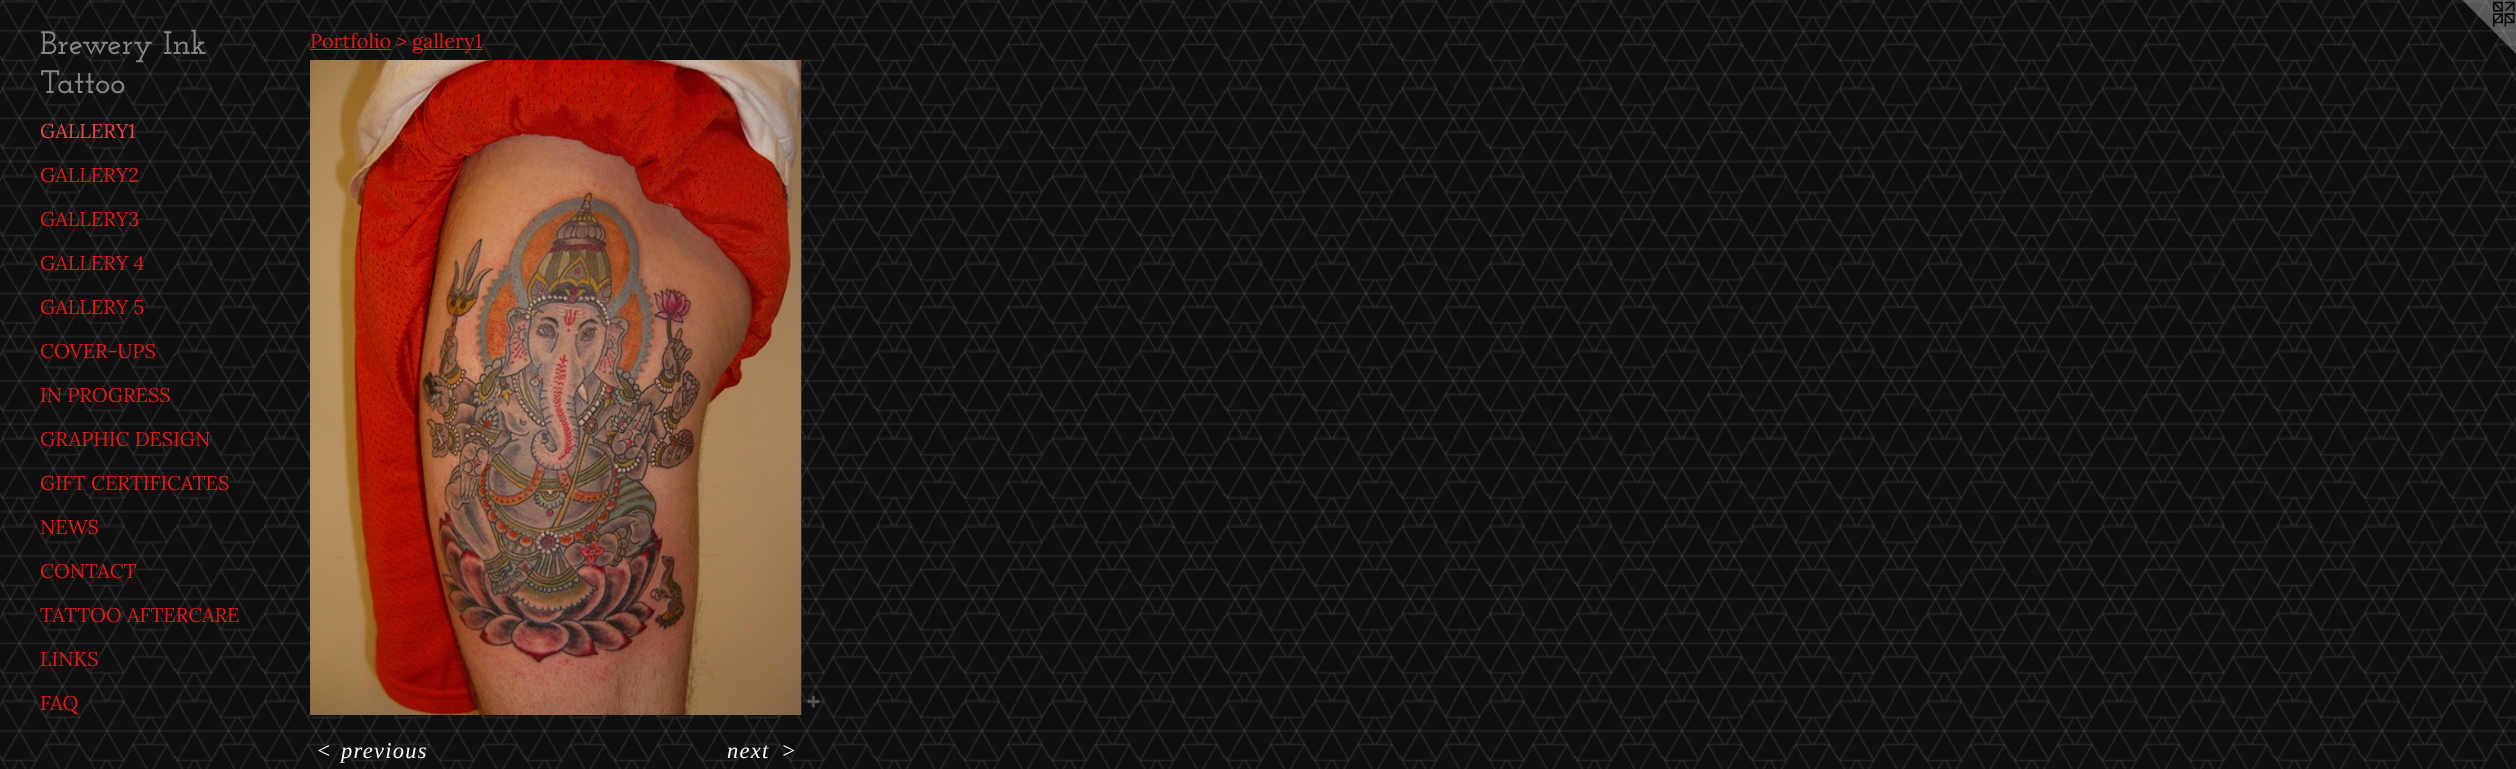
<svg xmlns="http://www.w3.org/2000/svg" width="2516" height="769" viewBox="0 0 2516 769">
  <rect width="100%" height="100%" fill="#ffffff"/>
  <image x="0" y="0" width="2516" height="769" href="img1.png"/>
  <text x="40" y="54" font-family="Josefin Slab" font-size="32.5" font-weight="100" fill="#858585">Brewery Ink</text>
  <text x="40" y="93" font-family="Josefin Slab" font-size="32.5" font-weight="100" fill="#858585">Tattoo</text>
  <text x="40" y="138" font-family="Lora" font-size="20" fill="#eb4747">GALLERY1</text>
  <text x="40" y="182" font-family="Lora" font-size="20" fill="#e61919">GALLERY2</text>
  <text x="40" y="226" font-family="Lora" font-size="20" fill="#e61919">GALLERY3</text>
  <text x="40" y="270" font-family="Lora" font-size="20" fill="#e61919">GALLERY 4</text>
  <text x="40" y="314" font-family="Lora" font-size="20" fill="#e61919">GALLERY 5</text>
  <text x="40" y="358" font-family="Lora" font-size="20" fill="#e61919">COVER-UPS</text>
  <text x="40" y="402" font-family="Lora" font-size="20" fill="#e61919">IN PROGRESS</text>
  <text x="40" y="446" font-family="Lora" font-size="20" fill="#e61919">GRAPHIC DESIGN</text>
  <text x="40" y="490" font-family="Lora" font-size="20" fill="#e61919">GIFT CERTIFICATES</text>
  <text x="40" y="534" font-family="Lora" font-size="20" fill="#e61919">NEWS</text>
  <text x="40" y="578" font-family="Lora" font-size="20" fill="#e61919">CONTACT</text>
  <text x="40" y="622" font-family="Lora" font-size="20" fill="#e61919">TATTOO AFTERCARE</text>
  <text x="40" y="666" font-family="Lora" font-size="20" fill="#e61919">LINKS</text>
  <text x="40" y="710" font-family="Lora" font-size="20" fill="#e61919">FAQ</text>
  <text x="310" y="48" font-family="Lora" font-size="20" fill="#e61919">Portfolio &gt;</text>
  <rect x="310" y="49" width="81" height="1" fill="#e61919"/>
  <rect x="413" y="49" width="70" height="1" fill="#e61919"/>
  <text x="412" y="48" font-family="Lora" font-size="20" fill="#e61919">gallery1</text>
  <image x="310" y="60" width="492" height="655" href="img2.png"/>
  <image x="807" y="695" width="13" height="13" href="img3.png"/>
  <text x="316" y="758" font-family="Liberation Serif" font-size="22.5" font-style="italic" letter-spacing="1.25" fill="#fdf8f7">&lt;</text>
  <text x="341" y="758" font-family="Liberation Serif" font-size="22.5" font-style="italic" letter-spacing="1.25" fill="#fdf8f7">previous</text>
  <text x="727" y="758" font-family="Liberation Serif" font-size="22.5" font-style="italic" letter-spacing="1.25" fill="#fdf8f7">next</text>
  <text x="781" y="758" font-family="Liberation Serif" font-size="22.5" font-style="italic" letter-spacing="1.25" fill="#fdf8f7">&gt;</text>
  <image x="2462" y="0" width="54" height="54" href="img4.png"/>
</svg>
